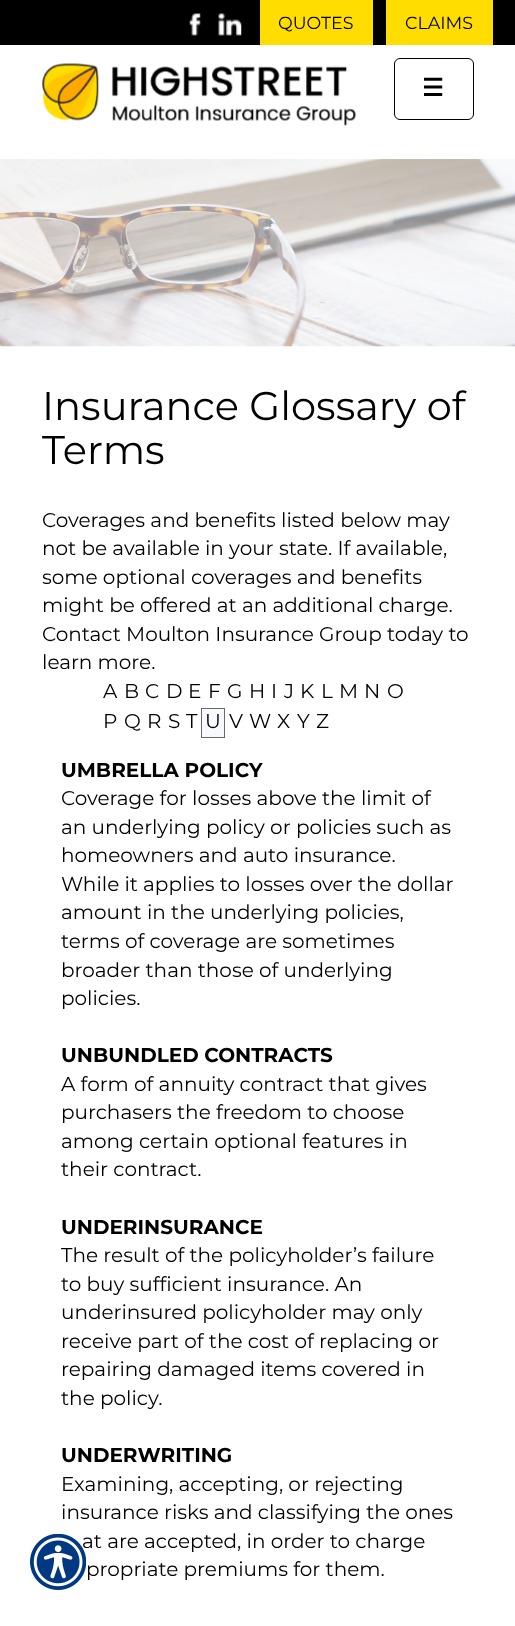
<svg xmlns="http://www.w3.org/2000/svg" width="515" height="1626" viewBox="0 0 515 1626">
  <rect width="100%" height="100%" fill="#ffffff"/>
  <rect x="0" y="0" width="515" height="45" fill="#000000"/>
  <image x="189" y="13" width="12" height="23" href="img1.png"/>
  <image x="218" y="13" width="24" height="23" href="img2.png"/>
  <rect x="260" y="0" width="113" height="45" fill="#ffdd00"/>
  <text x="278" y="29" font-family="Montserrat" font-size="17.5" font-weight="100" fill="#000000">QUOTES</text>
  <rect x="386" y="0" width="107" height="45" fill="#ffdd00"/>
  <text x="405" y="29" font-family="Montserrat" font-size="17.5" font-weight="100" fill="#000000">CLAIMS</text>
  <image x="42" y="63" width="315" height="63" href="img3.png"/>
  <rect x="394.5" y="58.5" width="79" height="61" rx="5.5" fill="none" stroke="#000000"/>
  <text x="422" y="96" font-family="DejaVu Sans" font-size="24" font-weight="bold" fill="#000000">☰</text>
  <image x="0" y="159" width="515" height="188" href="img4.png"/>
  <text x="42" y="420" font-family="Montserrat" font-size="40" font-weight="100" fill="#000000">Insurance Glossary of</text>
  <text x="42" y="464" font-family="Montserrat" font-size="40" font-weight="100" fill="#000000">Terms</text>
  <text x="42" y="527" font-family="Montserrat" font-size="20" font-weight="100" fill="#000000">Coverages and benefits listed below may</text>
  <text x="42" y="555" font-family="Montserrat" font-size="20" font-weight="100" fill="#000000">not be available in your state. If available,</text>
  <text x="42" y="584" font-family="Montserrat" font-size="20" font-weight="100" fill="#000000">some optional coverages and benefits</text>
  <text x="42" y="612" font-family="Montserrat" font-size="20" font-weight="100" fill="#000000">might be offered at an additional charge.</text>
  <text x="42" y="641" font-family="Montserrat" font-size="20" font-weight="100" fill="#000000">Contact Moulton Insurance Group today to</text>
  <text x="42" y="669" font-family="Montserrat" font-size="20" font-weight="100" fill="#000000">learn more.</text>
  <text x="103" y="698" font-family="Montserrat" font-size="20" font-weight="100" fill="#000000">A</text>
  <text x="124" y="698" font-family="Montserrat" font-size="20" font-weight="100" fill="#000000">B</text>
  <text x="145" y="698" font-family="Montserrat" font-size="20" font-weight="100" fill="#000000">C</text>
  <text x="166" y="698" font-family="Montserrat" font-size="20" font-weight="100" fill="#000000">D</text>
  <text x="188" y="698" font-family="Montserrat" font-size="20" font-weight="100" fill="#000000">E</text>
  <text x="208" y="698" font-family="Montserrat" font-size="20" font-weight="100" fill="#000000">F</text>
  <text x="227" y="698" font-family="Montserrat" font-size="20" font-weight="100" fill="#000000">G</text>
  <text x="249" y="698" font-family="Montserrat" font-size="20" font-weight="100" fill="#000000">H</text>
  <text x="271" y="698" font-family="Montserrat" font-size="20" font-weight="100" fill="#000000">I</text>
  <text x="284" y="698" font-family="Montserrat" font-size="20" font-weight="100" fill="#000000">J</text>
  <text x="300" y="698" font-family="Montserrat" font-size="20" font-weight="100" fill="#000000">K</text>
  <text x="321" y="698" font-family="Montserrat" font-size="20" font-weight="100" fill="#000000">L</text>
  <text x="339" y="698" font-family="Montserrat" font-size="20" font-weight="100" fill="#000000">M</text>
  <text x="364" y="698" font-family="Montserrat" font-size="20" font-weight="100" fill="#000000">N</text>
  <text x="387" y="698" font-family="Montserrat" font-size="20" font-weight="100" fill="#000000">O</text>
  <text x="103" y="728" font-family="Montserrat" font-size="20" font-weight="100" fill="#000000">P</text>
  <text x="124" y="728" font-family="Montserrat" font-size="20" font-weight="100" fill="#000000">Q</text>
  <text x="147" y="728" font-family="Montserrat" font-size="20" font-weight="100" fill="#000000">R</text>
  <text x="168" y="728" font-family="Montserrat" font-size="20" font-weight="100" fill="#000000">S</text>
  <text x="186" y="728" font-family="Montserrat" font-size="20" font-weight="100" fill="#000000">T</text>
  <rect x="201.5" y="708.5" width="23" height="29" fill="#f8f8ff" stroke="#696969"/>
  <text x="205" y="728" font-family="Montserrat" font-size="20" font-weight="100" fill="#000000">U</text>
  <text x="229" y="728" font-family="Montserrat" font-size="20" font-weight="100" fill="#000000">V</text>
  <text x="249" y="728" font-family="Montserrat" font-size="20" font-weight="100" fill="#000000">W</text>
  <text x="277" y="728" font-family="Montserrat" font-size="20" font-weight="100" fill="#000000">X</text>
  <text x="297" y="728" font-family="Montserrat" font-size="20" font-weight="100" fill="#000000">Y</text>
  <text x="316" y="728" font-family="Montserrat" font-size="20" font-weight="100" fill="#000000">Z</text>
  <text x="61" y="777" font-family="Montserrat" font-size="20" font-weight="bold" fill="#000000">UMBRELLA POLICY</text>
  <text x="61" y="805" font-family="Montserrat" font-size="20" font-weight="100" fill="#000000">Coverage for losses above the limit of</text>
  <text x="61" y="834" font-family="Montserrat" font-size="20" font-weight="100" fill="#000000">an underlying policy or policies such as</text>
  <text x="61" y="862" font-family="Montserrat" font-size="20" font-weight="100" fill="#000000">homeowners and auto insurance.</text>
  <text x="61" y="891" font-family="Montserrat" font-size="20" font-weight="100" fill="#000000">While it applies to losses over the dollar</text>
  <text x="61" y="919" font-family="Montserrat" font-size="20" font-weight="100" fill="#000000">amount in the underlying policies,</text>
  <text x="61" y="948" font-family="Montserrat" font-size="20" font-weight="100" fill="#000000">terms of coverage are sometimes</text>
  <text x="61" y="977" font-family="Montserrat" font-size="20" font-weight="100" fill="#000000">broader than those of underlying</text>
  <text x="61" y="1005" font-family="Montserrat" font-size="20" font-weight="100" fill="#000000">policies.</text>
  <text x="61" y="1062" font-family="Montserrat" font-size="20" font-weight="bold" fill="#000000">UNBUNDLED CONTRACTS</text>
  <text x="61" y="1091" font-family="Montserrat" font-size="20" font-weight="100" fill="#000000">A form of annuity contract that gives</text>
  <text x="61" y="1119" font-family="Montserrat" font-size="20" font-weight="100" fill="#000000">purchasers the freedom to choose</text>
  <text x="61" y="1148" font-family="Montserrat" font-size="20" font-weight="100" fill="#000000">among certain optional features in</text>
  <text x="61" y="1176" font-family="Montserrat" font-size="20" font-weight="100" fill="#000000">their contract.</text>
  <text x="61" y="1234" font-family="Montserrat" font-size="20" font-weight="bold" fill="#000000">UNDERINSURANCE</text>
  <text x="61" y="1262" font-family="Montserrat" font-size="20" font-weight="100" fill="#000000">The result of the policyholder’s failure</text>
  <text x="61" y="1291" font-family="Montserrat" font-size="20" font-weight="100" fill="#000000">to buy sufficient insurance. An</text>
  <text x="61" y="1319" font-family="Montserrat" font-size="20" font-weight="100" fill="#000000">underinsured policyholder may only</text>
  <text x="61" y="1348" font-family="Montserrat" font-size="20" font-weight="100" fill="#000000">receive part of the cost of replacing or</text>
  <text x="61" y="1376" font-family="Montserrat" font-size="20" font-weight="100" fill="#000000">repairing damaged items covered in</text>
  <text x="61" y="1405" font-family="Montserrat" font-size="20" font-weight="100" fill="#000000">the policy.</text>
  <text x="61" y="1462" font-family="Montserrat" font-size="20" font-weight="bold" fill="#000000">UNDERWRITING</text>
  <text x="61" y="1491" font-family="Montserrat" font-size="20" font-weight="100" fill="#000000">Examining, accepting, or rejecting</text>
  <text x="61" y="1519" font-family="Montserrat" font-size="20" font-weight="100" fill="#000000">insurance risks and classifying the ones</text>
  <text x="82" y="1548" font-family="Montserrat" font-size="20" font-weight="100" fill="#000000">at are accepted, in order to charge</text>
  <text x="86" y="1576" font-family="Montserrat" font-size="20" font-weight="100" fill="#000000">propriate premiums for them.</text>
  <image x="30" y="1534" width="56" height="56" href="img5.png"/>
</svg>
